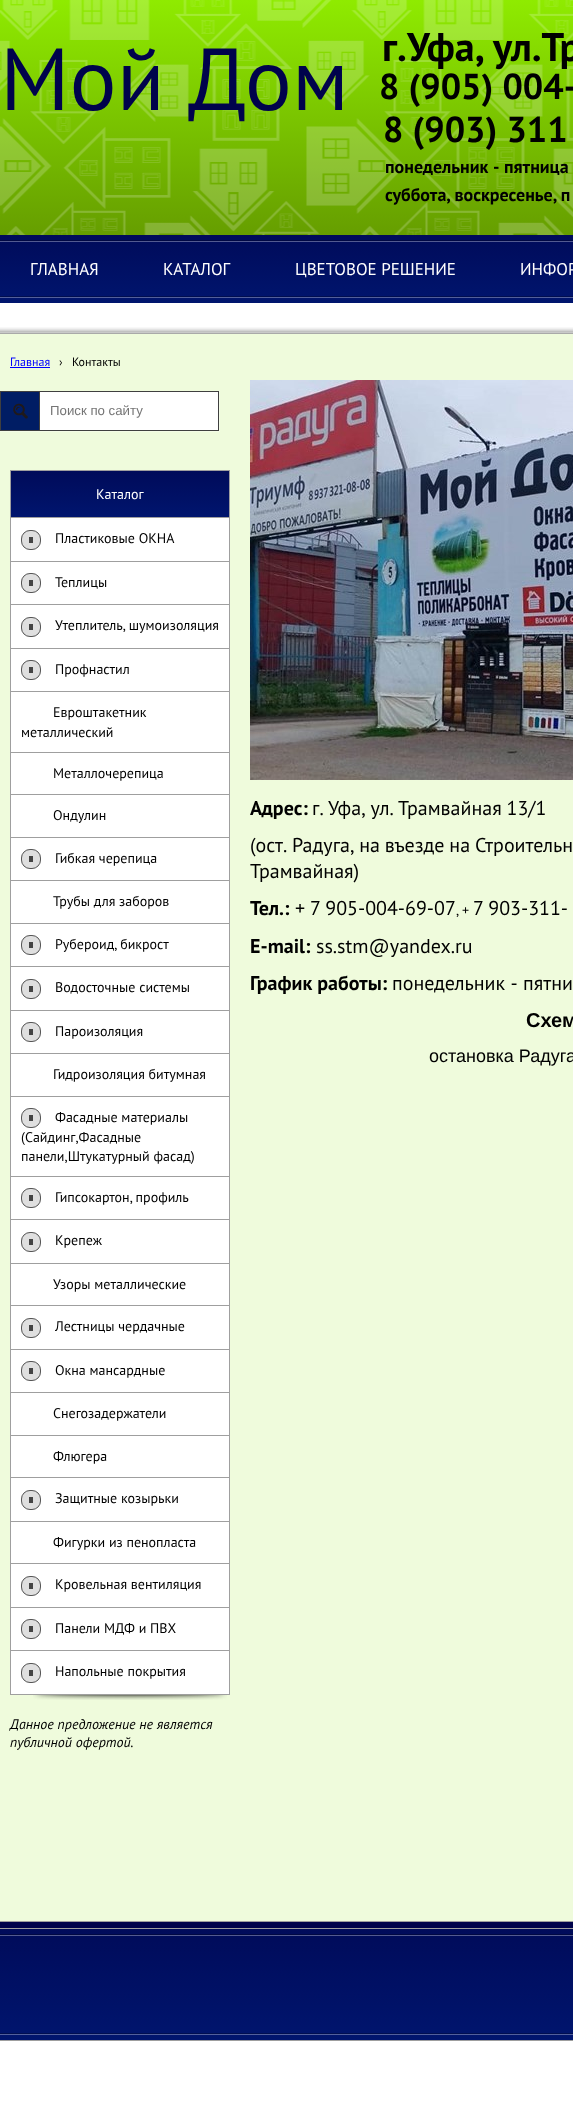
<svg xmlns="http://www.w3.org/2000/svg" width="573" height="2109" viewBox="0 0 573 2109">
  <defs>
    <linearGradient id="g1" gradientUnits="userSpaceOnUse" x1="287" y1="0" x2="287" y2="235"><stop offset="0" stop-color="#8feb00"/><stop offset="1" stop-color="#669e00"/></linearGradient>
    <linearGradient id="g2" gradientUnits="userSpaceOnUse" x1="287" y1="235" x2="287" y2="303"><stop offset="0" stop-color="#000b5a"/><stop offset="1" stop-color="#00156e"/></linearGradient>
    <linearGradient id="g3" gradientUnits="userSpaceOnUse" x1="120" y1="471" x2="120" y2="517"><stop offset="0" stop-color="#000b5a"/><stop offset="1" stop-color="#00156e"/></linearGradient>
    <linearGradient id="g4" gradientUnits="userSpaceOnUse" x1="287" y1="1929" x2="287" y2="2040"><stop offset="0" stop-color="#000b5a"/><stop offset="1" stop-color="#00156e"/></linearGradient>
  </defs>
  <rect width="100%" height="100%" fill="#ffffff"/>
  <rect x="0" y="0" width="573" height="235" fill="url(#g1)"/>
  <image x="0" y="0" width="573" height="235" href="img1.png"/>
  <text x="0" y="110" word-spacing="2" font-family="PT Sans" font-size="88" fill="#00034c">Мой Дом</text>
  <text x="382" y="61" word-spacing="-1" font-family="PT Sans" font-size="40" font-weight="bold" fill="#000000">г.Уфа, ул.Тр</text>
  <text x="379" y="99" font-family="PT Sans" font-size="36" font-weight="bold" fill="#000000">8 (905) 004-</text>
  <text x="383" y="142" font-family="PT Sans" font-size="36" font-weight="bold" fill="#000000">8 (903) 311</text>
  <text x="385" y="173" font-family="PT Sans" font-size="18" font-weight="bold" fill="#000000">понедельник - пятница</text>
  <text x="385" y="201" word-spacing="-1" font-family="PT Sans" font-size="18" font-weight="bold" fill="#000000">суббота, воскресенье, п</text>
  <rect x="0" y="235" width="573" height="68" fill="url(#g2)"/>
  <image x="0" y="240" width="573" height="58" href="img2.png"/>
  <text x="30" y="275" font-family="PT Sans" font-size="17" fill="#ffffff">ГЛАВНАЯ</text>
  <text x="163" y="275" font-family="PT Sans" font-size="17" fill="#ffffff">КАТАЛОГ</text>
  <text x="295" y="275" font-family="PT Sans" font-size="17" fill="#ffffff">ЦВЕТОВОЕ РЕШЕНИЕ</text>
  <text x="520" y="275" font-family="PT Sans" font-size="17" fill="#ffffff">ИНФОР</text>
  <image x="0" y="327" width="573" height="6" href="img3.png"/>
  <rect x="0" y="333" width="573" height="1" fill="#a9a9a9"/>
  <rect x="0" y="334" width="573" height="1587" fill="#effbdc"/>
  <text x="10" y="366" font-family="PT Sans" font-size="12" fill="#0000ff">Главная</text>
  <rect x="10" y="367" width="40" height="1" fill="#0000ff"/>
  <text x="59" y="366" font-family="PT Sans" font-size="12" fill="#000000">›</text>
  <text x="72" y="366" font-family="PT Sans" font-size="12" fill="#000000">Контакты</text>
  <path d="M220 391V432L219 431V391Z" fill="#f4fce7"/>
  <path d="M220 432H0V431H219Z" fill="#ffffff" fill-opacity="0.3"/>
  <rect x="0.5" y="391.5" width="218" height="39" fill="none" stroke="#3f3f3f"/>
  <rect x="1" y="392" width="38" height="38" fill="#001d64"/>
  <image x="13" y="403" width="15" height="16" href="img4.png"/>
  <rect x="40" y="392" width="178" height="38" fill="#ffffff"/>
  <rect x="39" y="392" width="1" height="38" fill="#3f3f3f"/>
  <text x="50" y="415" font-family="Liberation Sans" font-size="13.25" fill="#757575">Поиск по сайту</text>
  <rect x="11" y="471" width="218" height="46" fill="url(#g3)"/>
  <rect x="10" y="470" width="220" height="1" fill="#9f9f9f"/>
  <rect x="229" y="470" width="1" height="47" fill="#9f9f9f"/>
  <rect x="10" y="470" width="1" height="47" fill="#9f9f9f"/>
  <text x="96" y="499" font-family="PT Sans" font-size="14" fill="#ffffff">Каталог</text>
  <rect x="10" y="1694" width="220" height="1" fill="#9f9f9f"/>
  <rect x="11" y="518" width="218" height="43" fill="#ffffff"/>
  <rect x="10" y="517" width="220" height="1" fill="#9f9f9f"/>
  <rect x="229" y="517" width="1" height="44" fill="#9f9f9f"/>
  <rect x="10" y="517" width="1" height="44" fill="#9f9f9f"/>
  <rect x="21" y="530" width="20" height="20" rx="9" fill="#dfdfdf"/>
  <rect x="29" y="537" width="4" height="6" fill="#444444"/>
  <rect x="21.5" y="530.5" width="19" height="19" rx="8.5" fill="none" stroke="#565656"/>
  <text x="55" y="543" font-family="PT Sans" font-size="14" fill="#000000">Пластиковые ОКНА</text>
  <rect x="11" y="562" width="218" height="42" fill="#ffffff"/>
  <rect x="10" y="561" width="220" height="1" fill="#9f9f9f"/>
  <rect x="229" y="561" width="1" height="43" fill="#9f9f9f"/>
  <rect x="10" y="561" width="1" height="43" fill="#9f9f9f"/>
  <rect x="21" y="573" width="20" height="20" rx="9" fill="#dfdfdf"/>
  <rect x="29" y="580" width="4" height="6" fill="#444444"/>
  <rect x="21.5" y="573.5" width="19" height="19" rx="8.5" fill="none" stroke="#565656"/>
  <text x="55" y="587" font-family="PT Sans" font-size="14" fill="#000000">Теплицы</text>
  <rect x="11" y="605" width="218" height="43" fill="#ffffff"/>
  <rect x="10" y="604" width="220" height="1" fill="#9f9f9f"/>
  <rect x="229" y="604" width="1" height="44" fill="#9f9f9f"/>
  <rect x="10" y="604" width="1" height="44" fill="#9f9f9f"/>
  <rect x="21" y="617" width="20" height="20" rx="9" fill="#dfdfdf"/>
  <rect x="29" y="624" width="4" height="6" fill="#444444"/>
  <rect x="21.5" y="617.5" width="19" height="19" rx="8.5" fill="none" stroke="#565656"/>
  <text x="55" y="630" word-spacing="-1" font-family="PT Sans" font-size="14" fill="#000000">Утеплитель, шумоизоляция</text>
  <rect x="11" y="649" width="218" height="42" fill="#ffffff"/>
  <rect x="10" y="648" width="220" height="1" fill="#9f9f9f"/>
  <rect x="229" y="648" width="1" height="43" fill="#9f9f9f"/>
  <rect x="10" y="648" width="1" height="43" fill="#9f9f9f"/>
  <rect x="21" y="660" width="20" height="20" rx="9" fill="#dfdfdf"/>
  <rect x="29" y="667" width="4" height="6" fill="#444444"/>
  <rect x="21.5" y="660.5" width="19" height="19" rx="8.5" fill="none" stroke="#565656"/>
  <text x="55" y="674" font-family="PT Sans" font-size="14" fill="#000000">Профнастил</text>
  <rect x="11" y="692" width="218" height="60" fill="#ffffff"/>
  <rect x="10" y="691" width="220" height="1" fill="#9f9f9f"/>
  <rect x="229" y="691" width="1" height="61" fill="#9f9f9f"/>
  <rect x="10" y="691" width="1" height="61" fill="#9f9f9f"/>
  <text x="53" y="717" font-family="PT Sans" font-size="14" fill="#000000">Евроштакетник</text>
  <text x="21" y="737" font-family="PT Sans" font-size="14" fill="#000000">металлический</text>
  <rect x="11" y="753" width="218" height="41" fill="#ffffff"/>
  <rect x="10" y="752" width="220" height="1" fill="#9f9f9f"/>
  <rect x="229" y="752" width="1" height="42" fill="#9f9f9f"/>
  <rect x="10" y="752" width="1" height="42" fill="#9f9f9f"/>
  <text x="53" y="778" font-family="PT Sans" font-size="14" fill="#000000">Металлочерепица</text>
  <rect x="11" y="795" width="218" height="42" fill="#ffffff"/>
  <rect x="10" y="794" width="220" height="1" fill="#9f9f9f"/>
  <rect x="229" y="794" width="1" height="43" fill="#9f9f9f"/>
  <rect x="10" y="794" width="1" height="43" fill="#9f9f9f"/>
  <text x="53" y="820" font-family="PT Sans" font-size="14" fill="#000000">Ондулин</text>
  <rect x="11" y="838" width="218" height="42" fill="#ffffff"/>
  <rect x="10" y="837" width="220" height="1" fill="#9f9f9f"/>
  <rect x="229" y="837" width="1" height="43" fill="#9f9f9f"/>
  <rect x="10" y="837" width="1" height="43" fill="#9f9f9f"/>
  <rect x="21" y="849" width="20" height="20" rx="9" fill="#dfdfdf"/>
  <rect x="29" y="856" width="4" height="6" fill="#444444"/>
  <rect x="21.5" y="849.5" width="19" height="19" rx="8.5" fill="none" stroke="#565656"/>
  <text x="55" y="863" font-family="PT Sans" font-size="14" fill="#000000">Гибкая черепица</text>
  <rect x="11" y="881" width="218" height="42" fill="#ffffff"/>
  <rect x="10" y="880" width="220" height="1" fill="#9f9f9f"/>
  <rect x="229" y="880" width="1" height="43" fill="#9f9f9f"/>
  <rect x="10" y="880" width="1" height="43" fill="#9f9f9f"/>
  <text x="53" y="906" font-family="PT Sans" font-size="14" fill="#000000">Трубы для заборов</text>
  <rect x="11" y="924" width="218" height="42" fill="#ffffff"/>
  <rect x="10" y="923" width="220" height="1" fill="#9f9f9f"/>
  <rect x="229" y="923" width="1" height="43" fill="#9f9f9f"/>
  <rect x="10" y="923" width="1" height="43" fill="#9f9f9f"/>
  <rect x="21" y="935" width="20" height="20" rx="9" fill="#dfdfdf"/>
  <rect x="29" y="942" width="4" height="6" fill="#444444"/>
  <rect x="21.5" y="935.5" width="19" height="19" rx="8.5" fill="none" stroke="#565656"/>
  <text x="55" y="949" word-spacing="-1" font-family="PT Sans" font-size="14" fill="#000000">Рубероид, бикрост</text>
  <rect x="11" y="967" width="218" height="43" fill="#ffffff"/>
  <rect x="10" y="966" width="220" height="1" fill="#9f9f9f"/>
  <rect x="229" y="966" width="1" height="44" fill="#9f9f9f"/>
  <rect x="10" y="966" width="1" height="44" fill="#9f9f9f"/>
  <rect x="21" y="979" width="20" height="20" rx="9" fill="#dfdfdf"/>
  <rect x="29" y="986" width="4" height="6" fill="#444444"/>
  <rect x="21.5" y="979.5" width="19" height="19" rx="8.5" fill="none" stroke="#565656"/>
  <text x="55" y="992" font-family="PT Sans" font-size="14" fill="#000000">Водосточные системы</text>
  <rect x="11" y="1011" width="218" height="42" fill="#ffffff"/>
  <rect x="10" y="1010" width="220" height="1" fill="#9f9f9f"/>
  <rect x="229" y="1010" width="1" height="43" fill="#9f9f9f"/>
  <rect x="10" y="1010" width="1" height="43" fill="#9f9f9f"/>
  <rect x="21" y="1022" width="20" height="20" rx="9" fill="#dfdfdf"/>
  <rect x="29" y="1029" width="4" height="6" fill="#444444"/>
  <rect x="21.5" y="1022.5" width="19" height="19" rx="8.5" fill="none" stroke="#565656"/>
  <text x="55" y="1036" font-family="PT Sans" font-size="14" fill="#000000">Пароизоляция</text>
  <rect x="11" y="1054" width="218" height="42" fill="#ffffff"/>
  <rect x="10" y="1053" width="220" height="1" fill="#9f9f9f"/>
  <rect x="229" y="1053" width="1" height="43" fill="#9f9f9f"/>
  <rect x="10" y="1053" width="1" height="43" fill="#9f9f9f"/>
  <text x="53" y="1079" font-family="PT Sans" font-size="14" fill="#000000">Гидроизоляция битумная</text>
  <rect x="11" y="1097" width="218" height="79" fill="#ffffff"/>
  <rect x="10" y="1096" width="220" height="1" fill="#9f9f9f"/>
  <rect x="229" y="1096" width="1" height="80" fill="#9f9f9f"/>
  <rect x="10" y="1096" width="1" height="80" fill="#9f9f9f"/>
  <rect x="21" y="1108" width="20" height="20" rx="9" fill="#dfdfdf"/>
  <rect x="29" y="1115" width="4" height="6" fill="#444444"/>
  <rect x="21.5" y="1108.5" width="19" height="19" rx="8.5" fill="none" stroke="#565656"/>
  <text x="55" y="1122" font-family="PT Sans" font-size="14" fill="#000000">Фасадные материалы</text>
  <text x="21" y="1142" font-family="PT Sans" font-size="14" fill="#000000">(Сайдинг,Фасадные</text>
  <text x="21" y="1161" font-family="PT Sans" font-size="14" fill="#000000">панели,Штукатурный фасад)</text>
  <rect x="11" y="1177" width="218" height="42" fill="#ffffff"/>
  <rect x="10" y="1176" width="220" height="1" fill="#9f9f9f"/>
  <rect x="229" y="1176" width="1" height="43" fill="#9f9f9f"/>
  <rect x="10" y="1176" width="1" height="43" fill="#9f9f9f"/>
  <rect x="21" y="1188" width="20" height="20" rx="9" fill="#dfdfdf"/>
  <rect x="29" y="1195" width="4" height="6" fill="#444444"/>
  <rect x="21.5" y="1188.5" width="19" height="19" rx="8.5" fill="none" stroke="#565656"/>
  <text x="55" y="1202" word-spacing="-1" font-family="PT Sans" font-size="14" fill="#000000">Гипсокартон, профиль</text>
  <rect x="11" y="1220" width="218" height="43" fill="#ffffff"/>
  <rect x="10" y="1219" width="220" height="1" fill="#9f9f9f"/>
  <rect x="229" y="1219" width="1" height="44" fill="#9f9f9f"/>
  <rect x="10" y="1219" width="1" height="44" fill="#9f9f9f"/>
  <rect x="21" y="1232" width="20" height="20" rx="9" fill="#dfdfdf"/>
  <rect x="29" y="1239" width="4" height="6" fill="#444444"/>
  <rect x="21.5" y="1232.5" width="19" height="19" rx="8.5" fill="none" stroke="#565656"/>
  <text x="55" y="1245" font-family="PT Sans" font-size="14" fill="#000000">Крепеж</text>
  <rect x="11" y="1264" width="218" height="41" fill="#ffffff"/>
  <rect x="10" y="1263" width="220" height="1" fill="#9f9f9f"/>
  <rect x="229" y="1263" width="1" height="42" fill="#9f9f9f"/>
  <rect x="10" y="1263" width="1" height="42" fill="#9f9f9f"/>
  <text x="53" y="1289" font-family="PT Sans" font-size="14" fill="#000000">Узоры металлические</text>
  <rect x="11" y="1306" width="218" height="43" fill="#ffffff"/>
  <rect x="10" y="1305" width="220" height="1" fill="#9f9f9f"/>
  <rect x="229" y="1305" width="1" height="44" fill="#9f9f9f"/>
  <rect x="10" y="1305" width="1" height="44" fill="#9f9f9f"/>
  <rect x="21" y="1318" width="20" height="20" rx="9" fill="#dfdfdf"/>
  <rect x="29" y="1325" width="4" height="6" fill="#444444"/>
  <rect x="21.5" y="1318.5" width="19" height="19" rx="8.5" fill="none" stroke="#565656"/>
  <text x="55" y="1331" font-family="PT Sans" font-size="14" fill="#000000">Лестницы чердачные</text>
  <rect x="11" y="1350" width="218" height="42" fill="#ffffff"/>
  <rect x="10" y="1349" width="220" height="1" fill="#9f9f9f"/>
  <rect x="229" y="1349" width="1" height="43" fill="#9f9f9f"/>
  <rect x="10" y="1349" width="1" height="43" fill="#9f9f9f"/>
  <rect x="21" y="1361" width="20" height="20" rx="9" fill="#dfdfdf"/>
  <rect x="29" y="1368" width="4" height="6" fill="#444444"/>
  <rect x="21.5" y="1361.5" width="19" height="19" rx="8.5" fill="none" stroke="#565656"/>
  <text x="55" y="1375" font-family="PT Sans" font-size="14" fill="#000000">Окна мансардные</text>
  <rect x="11" y="1393" width="218" height="42" fill="#ffffff"/>
  <rect x="10" y="1392" width="220" height="1" fill="#9f9f9f"/>
  <rect x="229" y="1392" width="1" height="43" fill="#9f9f9f"/>
  <rect x="10" y="1392" width="1" height="43" fill="#9f9f9f"/>
  <text x="53" y="1418" font-family="PT Sans" font-size="14" fill="#000000">Снегозадержатели</text>
  <rect x="11" y="1436" width="218" height="41" fill="#ffffff"/>
  <rect x="10" y="1435" width="220" height="1" fill="#9f9f9f"/>
  <rect x="229" y="1435" width="1" height="42" fill="#9f9f9f"/>
  <rect x="10" y="1435" width="1" height="42" fill="#9f9f9f"/>
  <text x="53" y="1461" font-family="PT Sans" font-size="14" fill="#000000">Флюгера</text>
  <rect x="11" y="1478" width="218" height="43" fill="#ffffff"/>
  <rect x="10" y="1477" width="220" height="1" fill="#9f9f9f"/>
  <rect x="229" y="1477" width="1" height="44" fill="#9f9f9f"/>
  <rect x="10" y="1477" width="1" height="44" fill="#9f9f9f"/>
  <rect x="21" y="1490" width="20" height="20" rx="9" fill="#dfdfdf"/>
  <rect x="29" y="1497" width="4" height="6" fill="#444444"/>
  <rect x="21.5" y="1490.5" width="19" height="19" rx="8.5" fill="none" stroke="#565656"/>
  <text x="55" y="1503" font-family="PT Sans" font-size="14" fill="#000000">Защитные козырьки</text>
  <rect x="11" y="1522" width="218" height="41" fill="#ffffff"/>
  <rect x="10" y="1521" width="220" height="1" fill="#9f9f9f"/>
  <rect x="229" y="1521" width="1" height="42" fill="#9f9f9f"/>
  <rect x="10" y="1521" width="1" height="42" fill="#9f9f9f"/>
  <text x="53" y="1547" font-family="PT Sans" font-size="14" fill="#000000">Фигурки из пенопласта</text>
  <rect x="11" y="1564" width="218" height="43" fill="#ffffff"/>
  <rect x="10" y="1563" width="220" height="1" fill="#9f9f9f"/>
  <rect x="229" y="1563" width="1" height="44" fill="#9f9f9f"/>
  <rect x="10" y="1563" width="1" height="44" fill="#9f9f9f"/>
  <rect x="21" y="1576" width="20" height="20" rx="9" fill="#dfdfdf"/>
  <rect x="29" y="1583" width="4" height="6" fill="#444444"/>
  <rect x="21.5" y="1576.5" width="19" height="19" rx="8.5" fill="none" stroke="#565656"/>
  <text x="55" y="1589" font-family="PT Sans" font-size="14" fill="#000000">Кровельная вентиляция</text>
  <rect x="11" y="1608" width="218" height="42" fill="#ffffff"/>
  <rect x="10" y="1607" width="220" height="1" fill="#9f9f9f"/>
  <rect x="229" y="1607" width="1" height="43" fill="#9f9f9f"/>
  <rect x="10" y="1607" width="1" height="43" fill="#9f9f9f"/>
  <rect x="21" y="1619" width="20" height="20" rx="9" fill="#dfdfdf"/>
  <rect x="29" y="1626" width="4" height="6" fill="#444444"/>
  <rect x="21.5" y="1619.5" width="19" height="19" rx="8.5" fill="none" stroke="#565656"/>
  <text x="55" y="1633" font-family="PT Sans" font-size="14" fill="#000000">Панели МДФ и ПВХ</text>
  <rect x="11" y="1651" width="218" height="43" fill="#ffffff"/>
  <rect x="10" y="1650" width="220" height="1" fill="#9f9f9f"/>
  <rect x="229" y="1650" width="1" height="44" fill="#9f9f9f"/>
  <rect x="10" y="1650" width="1" height="44" fill="#9f9f9f"/>
  <rect x="21" y="1663" width="20" height="20" rx="9" fill="#dfdfdf"/>
  <rect x="29" y="1670" width="4" height="6" fill="#444444"/>
  <rect x="21.5" y="1663.5" width="19" height="19" rx="8.5" fill="none" stroke="#565656"/>
  <text x="55" y="1676" font-family="PT Sans" font-size="14" fill="#000000">Напольные покрытия</text>
  <image x="33" y="1695" width="194" height="5" href="img5.png"/>
  <text x="10" y="1729" font-family="PT Sans" font-size="14" font-style="italic" fill="#000000">Данное предложение не является</text>
  <text x="10" y="1747" font-family="PT Sans" font-size="14" font-style="italic" fill="#000000">публичной офертой.</text>
  <image x="250" y="380" width="323" height="400" href="img6.png"/>
  <text x="250" y="815" font-family="PT Sans" font-size="20" font-weight="bold" fill="#000000">Адрес:</text>
  <text x="312" y="815" word-spacing="-0.5" font-family="PT Sans" font-size="20" fill="#000000">г. Уфа, ул. Трамвайная 13/1</text>
  <text x="250" y="852" word-spacing="-0.5" font-family="PT Sans" font-size="20" fill="#000000">(ост. Радуга, на въезде на Строительн</text>
  <text x="250" y="878" font-family="PT Sans" font-size="20" fill="#000000">Трамвайная)</text>
  <text x="250" y="915" font-family="PT Sans" font-size="20" font-weight="bold" fill="#000000">Тел.:</text>
  <text x="295" y="915" font-family="PT Sans" font-size="20" fill="#000000">+</text>
  <text x="310" y="915" word-spacing="-1" font-family="PT Sans" font-size="20" fill="#000000">7 905-004-69-07</text>
  <text x="456" y="915" word-spacing="-1" font-family="PT Sans" font-size="14" fill="#000000">, +</text>
  <text x="473" y="915" word-spacing="-1" font-family="PT Sans" font-size="20" fill="#000000">7 903-311-</text>
  <text x="250" y="953" font-family="PT Sans" font-size="20" font-weight="bold" fill="#000000">E-mail:</text>
  <text x="316" y="953" font-family="PT Sans" font-size="20" fill="#000000">ss.stm@yandex.ru</text>
  <text x="250" y="990" font-family="PT Sans" font-size="20" font-weight="bold" fill="#000000">График работы:</text>
  <text x="392" y="990" font-family="PT Sans" font-size="20" fill="#000000">понедельник - пятни</text>
  <text x="526" y="1027" font-family="Liberation Sans" font-size="20" font-weight="bold" fill="#000000">Схем</text>
  <text x="429" y="1062" font-family="Liberation Sans" font-size="18" fill="#000000">остановка Радуга</text>
  <rect x="0" y="1922" width="573" height="6" fill="#00034c"/>
  <rect x="0" y="1921" width="573" height="1" fill="#9f9f9f"/>
  <rect x="0" y="1929" width="573" height="111" fill="url(#g4)"/>
  <rect x="0" y="1928" width="573" height="1" fill="#9f9f9f"/>
  <rect x="0" y="2040" width="573" height="1" fill="#9f9f9f"/>
  <image x="0" y="1934" width="573" height="101" href="img7.png"/>
</svg>
